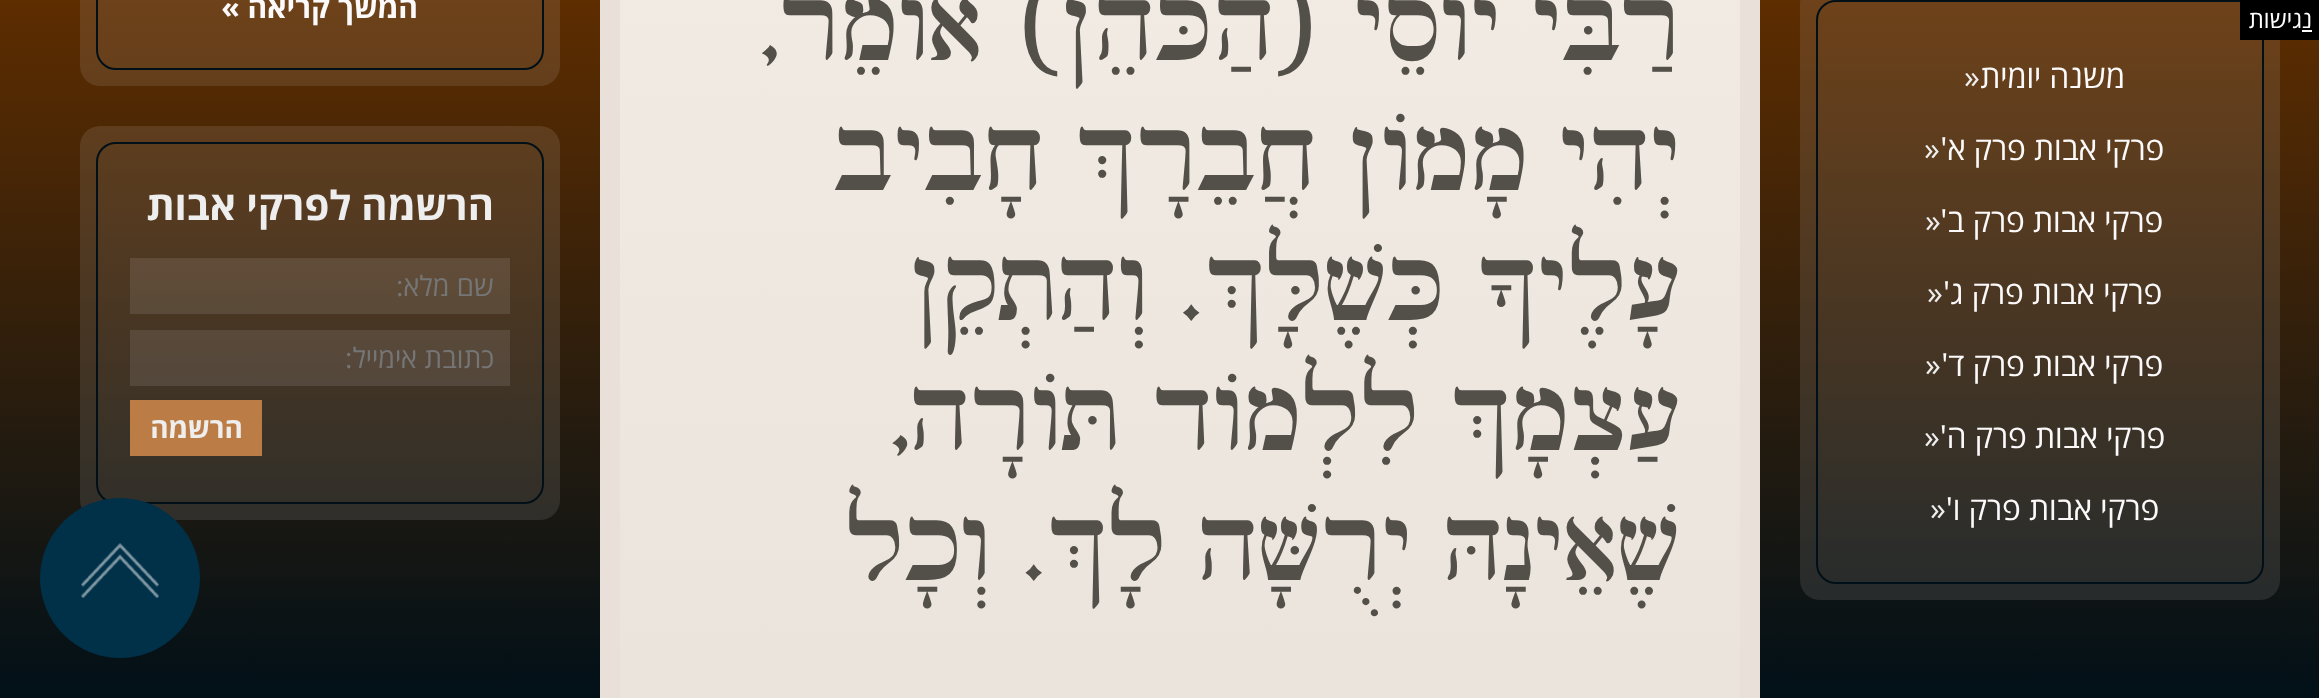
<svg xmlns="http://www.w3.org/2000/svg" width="2319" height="698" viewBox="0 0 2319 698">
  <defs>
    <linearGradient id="g1" gradientUnits="userSpaceOnUse" x1="1160" y1="0" x2="1160" y2="698"><stop offset="0" stop-color="#5e2d00"/><stop offset="1" stop-color="#011018"/></linearGradient>
    <linearGradient id="g2" gradientUnits="userSpaceOnUse" x1="1180" y1="-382" x2="1180" y2="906"><stop offset="0" stop-color="#f5eee7"/><stop offset="1" stop-color="#e9e2db"/></linearGradient>
  </defs>
  <rect width="100%" height="100%" fill="#ffffff"/>
  <rect x="0" y="0" width="2319" height="698" fill="url(#g1)"/>
  <rect x="1800" y="-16" width="480" height="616" rx="20" fill="#ffffff" fill-opacity="0.1"/>
  <rect x="1817" y="1" width="446" height="582" rx="19" fill="none" stroke="#011018" stroke-width="2"/>
  <rect x="2240" y="0" width="79" height="40" fill="#000000"/>
  <text x="2312" y="28" font-family="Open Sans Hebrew" font-size="24" direction="rtl" fill="#ffffff">נ</text>
  <rect x="2302" y="30" width="10" height="2" fill="#ffffff"/>
  <text x="2302" y="28" font-family="Open Sans Hebrew" font-size="24" direction="rtl" fill="#ffffff">גישות</text>
  <text x="2125" y="88" font-family="Open Sans Hebrew" font-size="32" direction="rtl" fill="#fbf9f9">משנה יומית</text>
  <text x="1964" y="88" font-family="Open Sans Hebrew" font-size="32" fill="#eeeeee">»</text>
  <text x="2164" y="160" font-family="Open Sans Hebrew" font-size="32" direction="rtl" fill="#fbf9f9">פרקי אבות פרק א'</text>
  <text x="1924" y="160" font-family="Open Sans Hebrew" font-size="32" fill="#eeeeee">»</text>
  <text x="2163" y="232" font-family="Open Sans Hebrew" font-size="32" direction="rtl" fill="#fbf9f9">פרקי אבות פרק ב'</text>
  <text x="1925" y="232" font-family="Open Sans Hebrew" font-size="32" fill="#eeeeee">»</text>
  <text x="2162" y="304" font-family="Open Sans Hebrew" font-size="32" direction="rtl" fill="#fbf9f9">פרקי אבות פרק ג'</text>
  <text x="1927" y="304" font-family="Open Sans Hebrew" font-size="32" fill="#eeeeee">»</text>
  <text x="2163" y="376" font-family="Open Sans Hebrew" font-size="32" direction="rtl" fill="#fbf9f9">פרקי אבות פרק ד'</text>
  <text x="1925" y="376" font-family="Open Sans Hebrew" font-size="32" fill="#eeeeee">»</text>
  <text x="2165" y="448" font-family="Open Sans Hebrew" font-size="32" direction="rtl" fill="#fbf9f9">פרקי אבות פרק ה'</text>
  <text x="1924" y="448" font-family="Open Sans Hebrew" font-size="32" fill="#eeeeee">»</text>
  <text x="2159" y="520" font-family="Open Sans Hebrew" font-size="32" direction="rtl" fill="#fbf9f9">פרקי אבות פרק ו'</text>
  <text x="1930" y="520" font-family="Open Sans Hebrew" font-size="32" fill="#eeeeee">»</text>
  <rect x="620" y="0" width="1120" height="698" fill="url(#g2)"/>
  <rect x="610" y="-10" width="1140" height="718" fill="none" stroke="#e8e0d9" stroke-width="20"/>
  <text x="1680" y="60" font-family="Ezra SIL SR" font-size="90" direction="rtl" fill="#534f49">רַבִּי יוֹסֵי (הַכֹּהֵן) אוֹמֵר,</text>
  <text x="1680" y="190" font-family="Ezra SIL SR" font-size="90" direction="rtl" fill="#534f49">יְהִי מָמוֹן חֲבֵרָךְ חָבִיב</text>
  <text x="1680" y="320" font-family="Ezra SIL SR" font-size="90" direction="rtl" fill="#534f49">עָלֶיךָ כְּשֶׁלָּךְ. וְהַתְקֵן</text>
  <text x="1680" y="450" font-family="Ezra SIL SR" font-size="90" direction="rtl" fill="#534f49">עַצְמָךְ לִלְמוֹד תּוֹרָה,</text>
  <text x="1680" y="580" font-family="Ezra SIL SR" font-size="90" direction="rtl" fill="#534f49">שֶׁאֵינָהּ יְרֻשָּׁה לָךְ. וְכָל</text>
  <rect x="80" y="-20" width="480" height="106" rx="20" fill="#ffffff" fill-opacity="0.1"/>
  <rect x="97" y="-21" width="446" height="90" rx="19" fill="none" stroke="#011018" stroke-width="2"/>
  <text x="418" y="18" font-family="Open Sans Hebrew" font-size="30" font-weight="bold" direction="rtl" fill="#fbf9f9">המשך קריאה »</text>
  <rect x="80" y="126" width="480" height="394" rx="20" fill="#ffffff" fill-opacity="0.1"/>
  <rect x="97" y="143" width="446" height="360" rx="19" fill="none" stroke="#011018" stroke-width="2"/>
  <text x="494" y="220" font-family="Open Sans Hebrew" font-size="40" font-weight="bold" direction="rtl" fill="#eeeeee">הרשמה לפרקי אבות</text>
  <rect x="130" y="258" width="380" height="56" fill="#ffffff" fill-opacity="0.1"/>
  <text x="494" y="296" font-family="Open Sans Hebrew" font-size="28" direction="rtl" fill="#757575">שם מלא:</text>
  <rect x="130" y="330" width="380" height="56" fill="#ffffff" fill-opacity="0.1"/>
  <text x="494" y="368" font-family="Open Sans Hebrew" font-size="28" direction="rtl" fill="#757575">כתובת אימייל:</text>
  <rect x="130" y="400" width="132" height="56" fill="#bb7d45"/>
  <text x="243" y="438" font-family="Open Sans Hebrew" font-size="28" font-weight="bold" direction="rtl" fill="#eeeeee">הרשמה</text>
  <circle cx="120" cy="578" r="80" fill="#003148"/>
  <image x="81" y="543" width="78" height="55" href="img1.png"/>
</svg>
